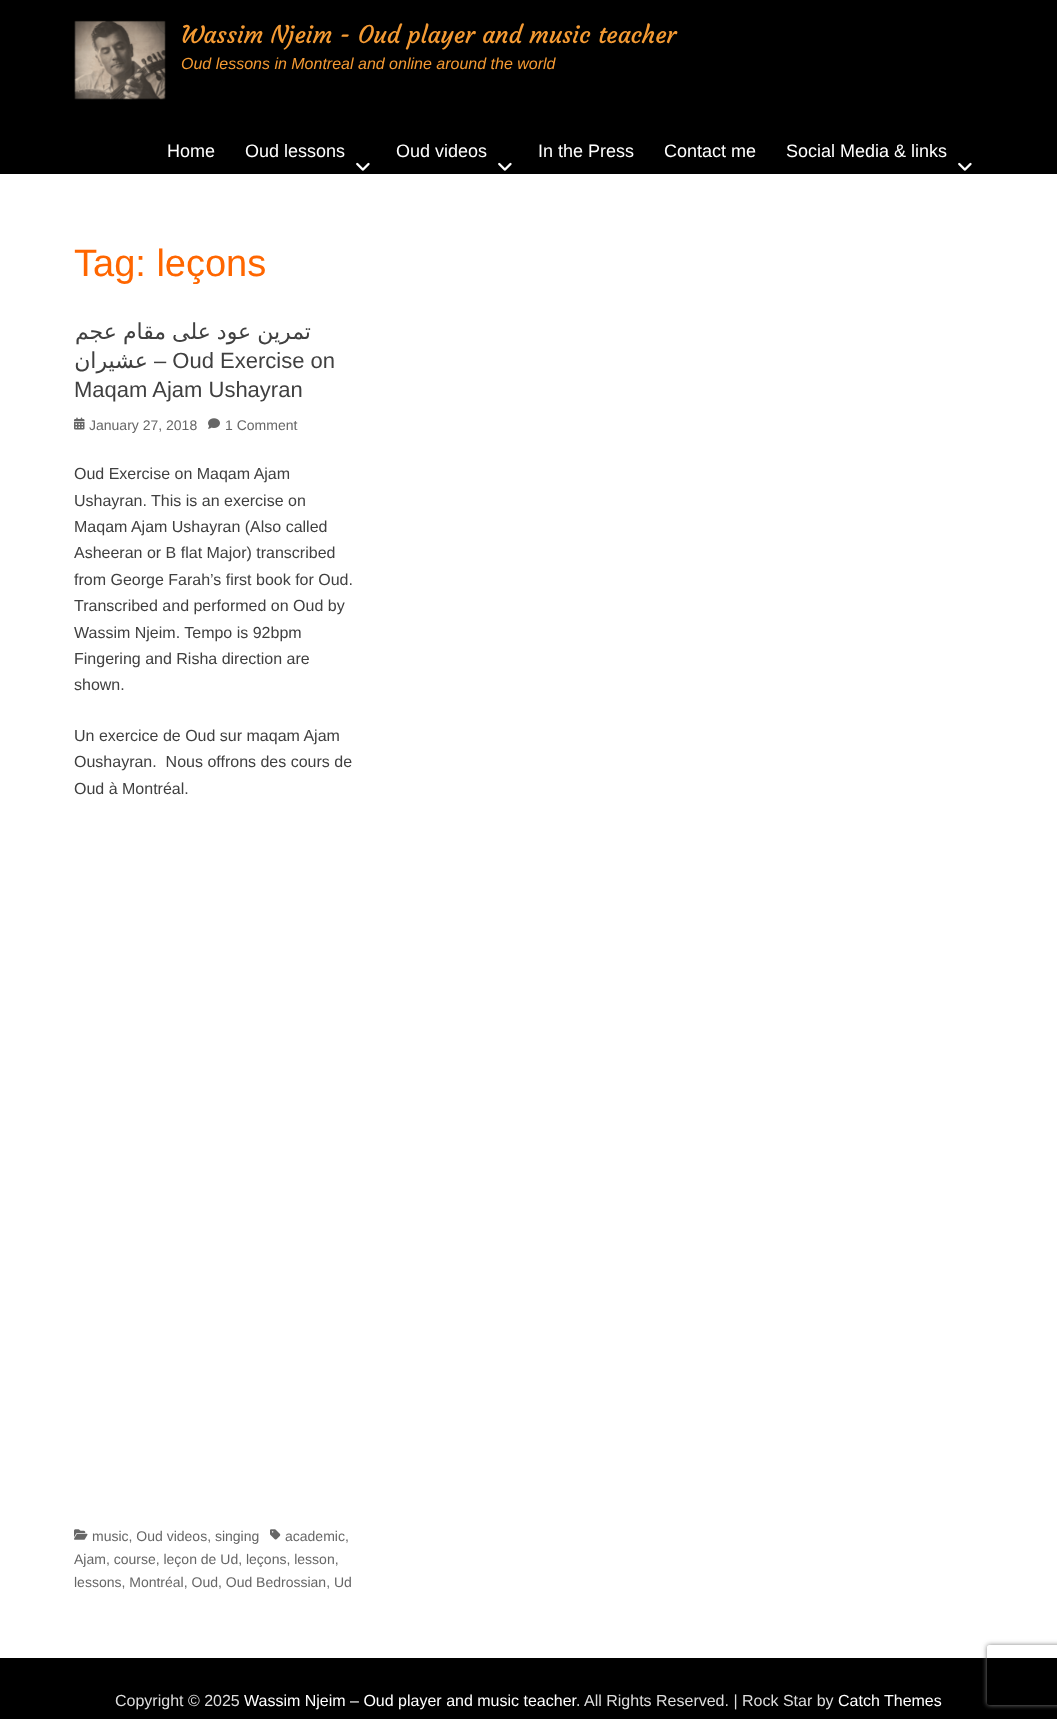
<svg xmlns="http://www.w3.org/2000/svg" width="1057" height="1719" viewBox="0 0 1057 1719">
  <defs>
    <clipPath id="clip1"><path d="M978 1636H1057V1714H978ZM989 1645H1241C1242 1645 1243 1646 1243 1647V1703C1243 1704 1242 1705 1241 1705H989C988 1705 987 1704 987 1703V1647C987 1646 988 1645 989 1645Z" clip-rule="evenodd"/></clipPath>
    <filter id="blur1" x="-50%" y="-200%" width="200%" height="500%"><feGaussianBlur stdDeviation="2.5"/></filter>
  </defs>
  <rect width="100%" height="100%" fill="#ffffff"/>
  <rect x="0" y="0" width="1057" height="174" fill="#000000"/>
  <image x="74" y="20" width="92" height="80" href="img1.png"/>
  <text x="181" y="43" font-family="Courgette" font-size="24" fill="#f49a33">Wassim Njeim - Oud player and music teacher</text>
  <text x="181" y="69" font-family="Liberation Sans" font-size="16" font-style="italic" fill="#f49a33">Oud lessons in Montreal and online around the world</text>
  <text x="167" y="157" font-family="Liberation Sans" font-size="18" fill="#ffffff">Home</text>
  <text x="245" y="157" font-family="Liberation Sans" font-size="18" fill="#ffffff">Oud lessons</text>
  <image x="356" y="162" width="14" height="9" href="img2.png"/>
  <text x="396" y="157" font-family="Liberation Sans" font-size="18" fill="#ffffff">Oud videos</text>
  <image x="498" y="162" width="14" height="9" href="img2.png"/>
  <text x="538" y="157" font-family="Liberation Sans" font-size="18" fill="#ffffff">In the Press</text>
  <text x="664" y="157" font-family="Liberation Sans" font-size="18" fill="#ffffff">Contact me</text>
  <text x="786" y="157" font-family="Liberation Sans" font-size="18" fill="#ffffff">Social Media &amp; links</text>
  <image x="958" y="162" width="14" height="9" href="img2.png"/>
  <text x="74" y="276" font-family="Liberation Sans" font-size="38" fill="#ff6600">Tag: leçons</text>
  <text x="311" y="339" word-spacing="-1" font-family="DejaVu Sans" font-size="22" direction="rtl" fill="#404040">تمرين عود على مقام عجم</text>
  <text x="148" y="368" font-family="DejaVu Sans" font-size="22" direction="rtl" fill="#404040">عشيران</text>
  <text x="154" y="368" font-family="Liberation Sans" font-size="22" fill="#404040">– Oud Exercise on</text>
  <text x="74" y="397" font-family="Liberation Sans" font-size="22" fill="#404040">Maqam Ajam Ushayran</text>
  <image x="74" y="417" width="11" height="13" href="img3.png"/>
  <text x="89" y="430" font-family="Liberation Sans" font-size="14" fill="#666666">January 27, 2018</text>
  <image x="208" y="418" width="12" height="11" href="img4.png"/>
  <text x="225" y="430" font-family="Liberation Sans" font-size="14" fill="#666666">1 Comment</text>
  <text x="74" y="479" font-family="Liberation Sans" font-size="16" fill="#404040">Oud Exercise on Maqam Ajam</text>
  <text x="74" y="506" font-family="Liberation Sans" font-size="16" fill="#404040">Ushayran. This is an exercise on</text>
  <text x="74" y="532" font-family="Liberation Sans" font-size="16" fill="#404040">Maqam Ajam Ushayran (Also called</text>
  <text x="74" y="558" font-family="Liberation Sans" font-size="16" fill="#404040">Asheeran or B flat Major) transcribed</text>
  <text x="74" y="585" font-family="Liberation Sans" font-size="16" fill="#404040">from George Farah’s first book for Oud.</text>
  <text x="74" y="611" font-family="Liberation Sans" font-size="16" fill="#404040">Transcribed and performed on Oud by</text>
  <text x="74" y="638" font-family="Liberation Sans" font-size="16" fill="#404040">Wassim Njeim. Tempo is 92bpm</text>
  <text x="74" y="664" font-family="Liberation Sans" font-size="16" fill="#404040">Fingering and Risha direction are</text>
  <text x="74" y="690" font-family="Liberation Sans" font-size="16" fill="#404040">shown.</text>
  <text x="74" y="741" font-family="Liberation Sans" font-size="16" fill="#404040">Un exercice de Oud sur maqam Ajam</text>
  <text x="74" y="767" font-family="Liberation Sans" font-size="16" fill="#404040" xml:space="preserve">Oushayran.  Nous offrons des cours de</text>
  <text x="74" y="794" font-family="Liberation Sans" font-size="16" fill="#404040">Oud à Montréal.</text>
  <image x="270" y="1529" width="11" height="11" href="img5.png"/>
  <text x="285" y="1541" font-family="Liberation Sans" font-size="14" fill="#666666">academic,</text>
  <text x="74" y="1564" font-family="Liberation Sans" font-size="14" fill="#666666">Ajam, course, leçon de Ud, leçons, lesson,</text>
  <text x="74" y="1587" font-family="Liberation Sans" font-size="14" fill="#666666">lessons, Montréal, Oud, Oud Bedrossian, Ud</text>
  <image x="74" y="1529" width="14" height="11" href="img6.png"/>
  <text x="92" y="1541" font-family="Liberation Sans" font-size="14" fill="#666666">music, Oud videos, singing</text>
  <rect x="0" y="1658" width="1057" height="61" fill="#000000"/>
  <text x="115" y="1706" font-family="Liberation Sans" font-size="16" fill="#dddddd">Copyright © 2025</text>
  <text x="244" y="1706" font-family="Liberation Sans" font-size="16" fill="#ffffff">Wassim Njeim – Oud player and music teacher</text>
  <text x="576" y="1706" font-family="Liberation Sans" font-size="16" fill="#dddddd">. All Rights Reserved. | Rock Star by</text>
  <text x="838" y="1706" font-family="Liberation Sans" font-size="16" fill="#ffffff">Catch Themes</text>
  <g clip-path="url(#clip1)">
    <rect x="987" y="1645" width="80" height="60" rx="2" fill="#808080" filter="url(#blur1)"/>
  </g>
</svg>
